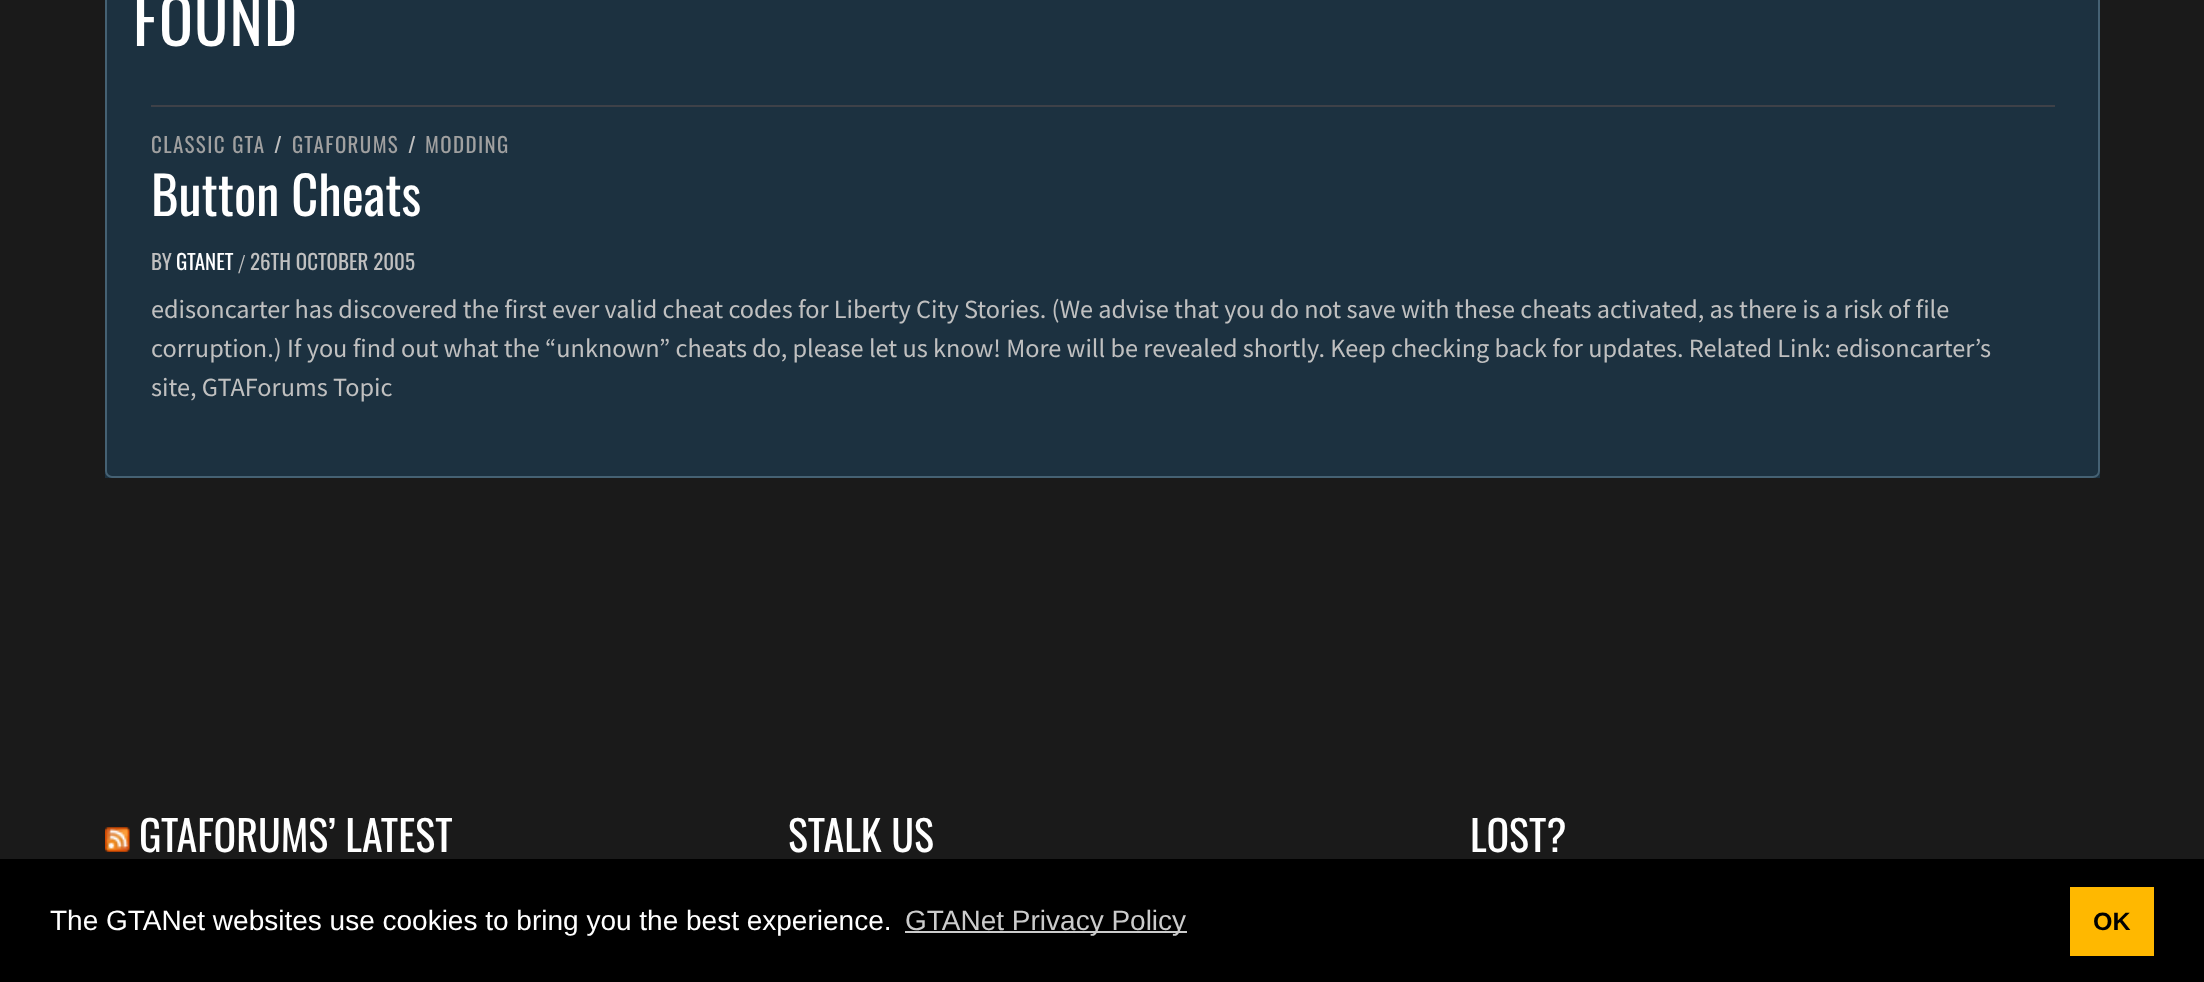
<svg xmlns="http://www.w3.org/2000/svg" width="2204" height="982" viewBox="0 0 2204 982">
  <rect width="100%" height="100%" fill="#1a1a1a"/>
  <rect x="105" y="0" width="1995" height="478" fill="#1c3140"/>
  <rect x="106" y="-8" width="1993" height="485" rx="6" fill="none" stroke="#456173" stroke-width="2"/>
  <text x="133" y="46" font-family="Oswald" font-size="63" letter-spacing="1.25" fill="#ffffff">FOUND</text>
  <rect x="151" y="105" width="1904" height="2" fill="#3e4148"/>
  <text x="151" y="153" font-family="Oswald" font-size="21" letter-spacing="1.4" fill="#a0a0a0">CLASSIC GTA</text>
  <text x="274" y="153" font-family="Oswald" font-size="21" letter-spacing="1.4" fill="#c0c0c0">/</text>
  <text x="292" y="153" font-family="Oswald" font-size="21" letter-spacing="1.4" fill="#a0a0a0">GTAFORUMS</text>
  <text x="408" y="153" font-family="Oswald" font-size="21" letter-spacing="1.4" fill="#c0c0c0">/</text>
  <text x="425" y="153" font-family="Oswald" font-size="21" letter-spacing="1.4" fill="#a0a0a0">MODDING</text>
  <text x="151" y="216" font-family="Oswald" font-size="52.5" fill="#ffffff">Button Cheats</text>
  <text x="151" y="270" font-family="Oswald" font-size="21" fill="#c0c0c0">BY</text>
  <text x="176" y="270" font-family="Oswald" font-size="21" fill="#ffffff">GTANET</text>
  <text x="238" y="270" font-family="Source Sans Pro" font-size="21" fill="#c0c0c0">/</text>
  <text x="250" y="270" font-family="Oswald" font-size="21" fill="#c0c0c0">26TH OCTOBER 2005</text>
  <text x="151" y="318" font-family="Source Sans Pro" font-size="26.25" fill="#c0c0c0">edisoncarter has discovered the first ever valid cheat codes for Liberty City Stories. (We advise that you do not save with these cheats activated, as there is a risk of file</text>
  <text x="151" y="357" font-family="Source Sans Pro" font-size="26.25" fill="#c0c0c0">corruption.) If you find out what the “unknown” cheats do, please let us know! More will be revealed shortly. Keep checking back for updates. Related Link: edisoncarter’s</text>
  <text x="151" y="396" font-family="Source Sans Pro" font-size="26.25" fill="#c0c0c0">site, GTAForums Topic</text>
  <image x="105" y="827" width="25" height="25" href="img1.png"/>
  <text x="139" y="852" font-family="Oswald" font-size="42" fill="#ffffff">GTAFORUMS’ LATEST</text>
  <text x="788" y="852" font-family="Oswald" font-size="42" fill="#ffffff">STALK US</text>
  <text x="1470" y="852" font-family="Oswald" font-size="42" fill="#ffffff">LOST?</text>
  <rect x="0" y="859" width="2204" height="123" fill="#000000"/>
  <text x="50" y="930" font-family="Liberation Sans" font-size="28" fill="#ffffff">The GTANet websites use cookies to bring you the best experience.</text>
  <rect x="905" y="931" width="282" height="2" fill="#cccccc"/>
  <text x="905" y="930" font-family="Liberation Sans" font-size="28" fill="#cccccc">GTANet Privacy Policy</text>
  <rect x="2070" y="887" width="84" height="69" fill="#ffb800"/>
  <text x="2093" y="930" font-family="Liberation Sans" font-size="25" font-weight="bold" fill="#000000">OK</text>
</svg>
